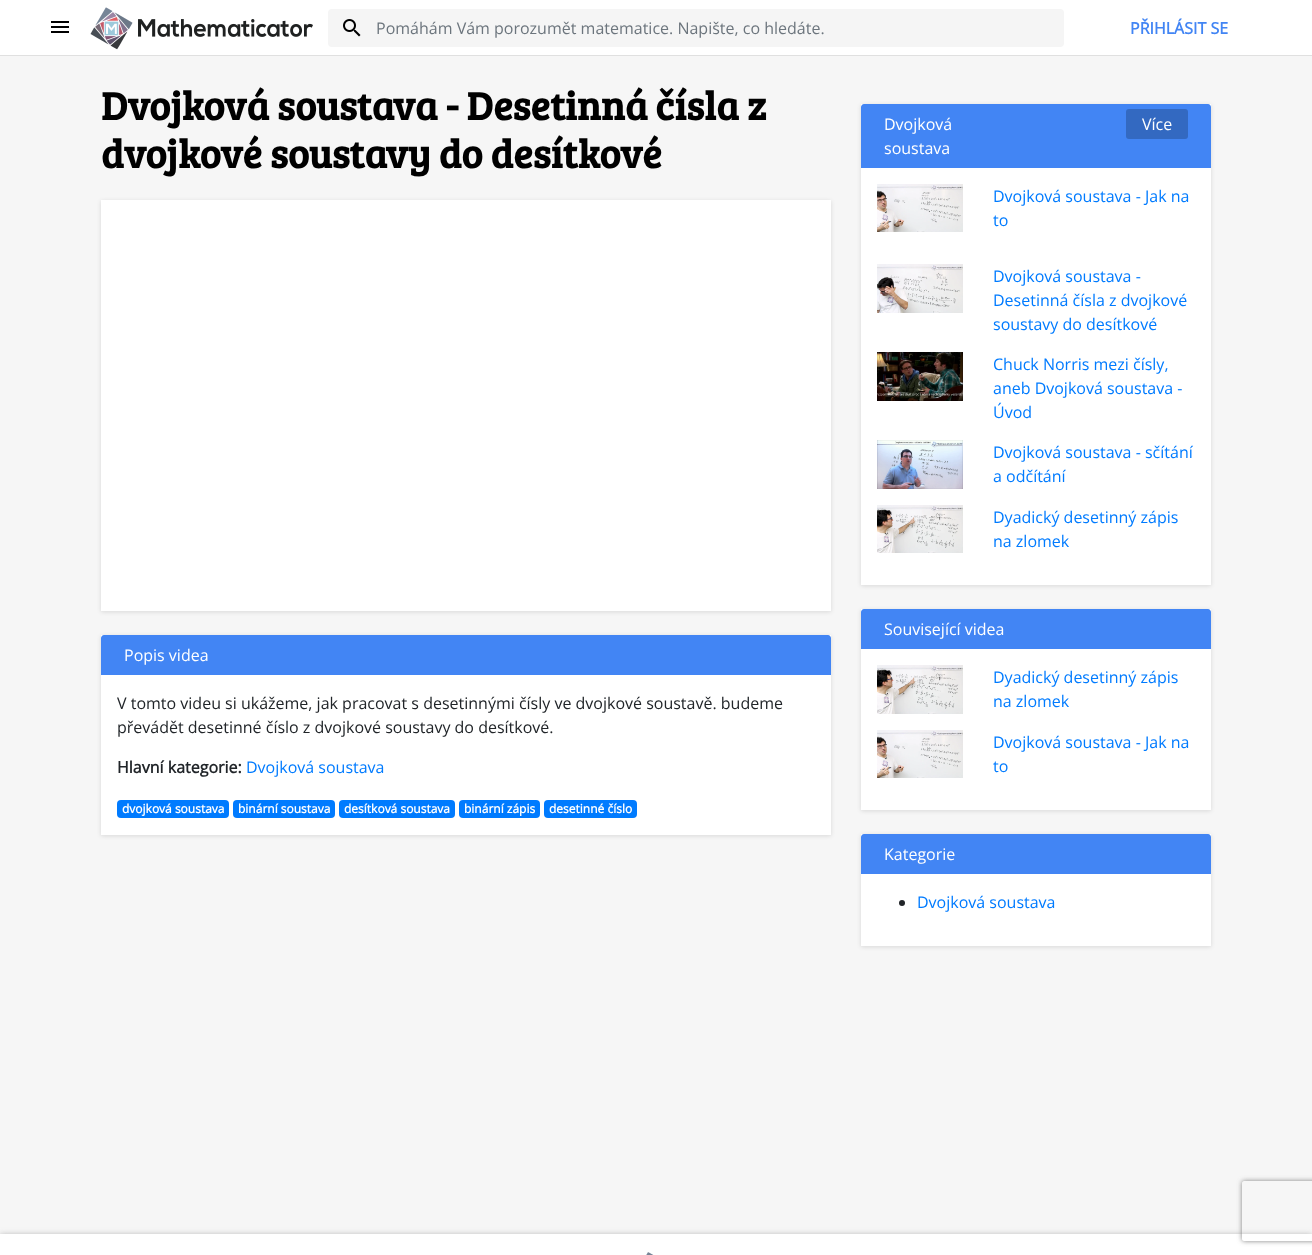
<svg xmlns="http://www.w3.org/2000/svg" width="1312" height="1255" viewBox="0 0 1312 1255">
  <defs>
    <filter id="blur1" x="-50%" y="-200%" width="200%" height="500%"><feGaussianBlur stdDeviation="2"/></filter>
    <filter id="blur2" x="-50%" y="-200%" width="200%" height="500%"><feGaussianBlur stdDeviation="3"/></filter>
    <clipPath id="clip1"><path d="M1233 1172H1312V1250H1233ZM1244 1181H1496C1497 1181 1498 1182 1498 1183V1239C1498 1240 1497 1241 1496 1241H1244C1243 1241 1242 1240 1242 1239V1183C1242 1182 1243 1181 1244 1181Z" clip-rule="evenodd"/></clipPath>
    <filter id="blur3" x="-50%" y="-200%" width="200%" height="500%"><feGaussianBlur stdDeviation="2.5"/></filter>
  </defs>
  <rect width="100%" height="100%" fill="#f6f6f6"/>
  <rect x="0" y="0" width="1312" height="55" fill="#ffffff"/>
  <rect x="0" y="55" width="1312" height="1" fill="#e0e0e0"/>
  <image x="51" y="21" width="18" height="12" href="img1.png"/>
  <image x="90" y="7" width="43" height="43" href="img2.png"/>
  <image x="138" y="19" width="175" height="18" href="img3.png"/>
  <rect x="328" y="9" width="736" height="38" rx="4" fill="#f5f5f5"/>
  <image x="343" y="19" width="18" height="18" href="img4.png"/>
  <text x="376" y="34" font-family="Open Sans" font-size="16" fill="#6c757d">Pomáhám Vám porozumět matematice. Napište, co hledáte.</text>
  <text x="1130" y="34" font-family="Open Sans" font-size="16" font-weight="bold" fill="#4285f4">PŘIHLÁSIT SE</text>
  <text x="101" y="120" font-family="Bree Serif" font-size="40" font-weight="bold" fill="#000000">Dvojková soustava - Desetinná čísla z</text>
  <text x="101" y="168" font-family="Bree Serif" font-size="40" font-weight="bold" fill="#000000">dvojkové soustavy do desítkové</text>
  <rect x="101" y="201" width="730" height="411" fill="#000000" fill-opacity="0.12" filter="url(#blur1)"/>
  <rect x="101" y="200" width="730" height="411" fill="#ffffff"/>
  <rect x="101" y="636" width="730" height="200" fill="#000000" fill-opacity="0.12" filter="url(#blur1)"/>
  <rect x="101" y="635" width="730" height="200" fill="#ffffff"/>
  <path d="M104 635H828C829.5 635 831 636.5 831 638V675H101V638C101 636.5 102.5 635 104 635Z" fill="#4285f4"/>
  <text x="124" y="661" font-family="Open Sans" font-size="16" fill="#ffffff">Popis videa</text>
  <text x="117" y="709" font-family="Open Sans" font-size="16" fill="#212529">V tomto videu si ukážeme, jak pracovat s desetinnými čísly ve dvojkové soustavě. budeme</text>
  <text x="117" y="733" font-family="Open Sans" font-size="16" fill="#212529">převádět desetinné číslo z dvojkové soustavy do desítkové.</text>
  <text x="117" y="773" font-family="Open Sans" font-size="16" font-weight="bold" fill="#212529">Hlavní kategorie:</text>
  <text x="246" y="773" font-family="Open Sans" font-size="16" fill="#007bff">Dvojková soustava</text>
  <rect x="117" y="800" width="112" height="18" rx="4" fill="#007bff"/>
  <text x="122" y="813" font-family="Open Sans" font-size="12" font-weight="bold" fill="#ffffff">dvojková soustava</text>
  <rect x="233" y="800" width="102" height="18" rx="4" fill="#007bff"/>
  <text x="238" y="813" font-family="Open Sans" font-size="12" font-weight="bold" fill="#ffffff">binární soustava</text>
  <rect x="339" y="800" width="116" height="18" rx="4" fill="#007bff"/>
  <text x="344" y="813" font-family="Open Sans" font-size="12" font-weight="bold" fill="#ffffff">desítková soustava</text>
  <rect x="459" y="800" width="81" height="18" rx="4" fill="#007bff"/>
  <text x="464" y="813" font-family="Open Sans" font-size="12" font-weight="bold" fill="#ffffff">binární zápis</text>
  <rect x="544" y="800" width="93" height="18" rx="4" fill="#007bff"/>
  <text x="549" y="813" font-family="Open Sans" font-size="12" font-weight="bold" fill="#ffffff">desetinné číslo</text>
  <rect x="861" y="105" width="350" height="481" fill="#000000" fill-opacity="0.12" filter="url(#blur1)"/>
  <rect x="861" y="104" width="350" height="481" fill="#ffffff"/>
  <path d="M864 104H1208C1209.5 104 1211 105.5 1211 107V168H861V107C861 105.5 862.5 104 864 104Z" fill="#4285f4"/>
  <text x="884" y="130" font-family="Open Sans" font-size="16" fill="#ffffff">Dvojková</text>
  <text x="884" y="154" font-family="Open Sans" font-size="16" fill="#ffffff">soustava</text>
  <rect x="1126" y="109" width="62" height="30" rx="3" fill="#3369c1"/>
  <text x="1142" y="130" font-family="Open Sans" font-size="16" fill="#ffffff">Více</text>
  <image x="877" y="184" width="86" height="48" href="img5.png"/>
  <text x="993" y="202" font-family="Open Sans" font-size="16" fill="#007bff">Dvojková soustava - Jak na</text>
  <text x="993" y="226" font-family="Open Sans" font-size="16" fill="#007bff">to</text>
  <image x="877" y="264" width="86" height="49" href="img6.png"/>
  <text x="993" y="282" font-family="Open Sans" font-size="16" fill="#007bff">Dvojková soustava -</text>
  <text x="993" y="306" font-family="Open Sans" font-size="16" fill="#007bff">Desetinná čísla z dvojkové</text>
  <text x="993" y="330" font-family="Open Sans" font-size="16" fill="#007bff">soustavy do desítkové</text>
  <image x="877" y="352" width="86" height="49" href="img7.png"/>
  <text x="993" y="370" font-family="Open Sans" font-size="16" fill="#007bff">Chuck Norris mezi čísly,</text>
  <text x="993" y="394" font-family="Open Sans" font-size="16" fill="#007bff">aneb Dvojková soustava -</text>
  <text x="993" y="418" font-family="Open Sans" font-size="16" fill="#007bff">Úvod</text>
  <image x="877" y="440" width="86" height="49" href="img8.png"/>
  <text x="993" y="458" font-family="Open Sans" font-size="16" fill="#007bff">Dvojková soustava - sčítání</text>
  <text x="993" y="482" font-family="Open Sans" font-size="16" fill="#007bff">a odčítání</text>
  <image x="877" y="505" width="86" height="48" href="img9.png"/>
  <text x="993" y="523" font-family="Open Sans" font-size="16" fill="#007bff">Dyadický desetinný zápis</text>
  <text x="993" y="547" font-family="Open Sans" font-size="16" fill="#007bff">na zlomek</text>
  <rect x="861" y="610" width="350" height="201" fill="#000000" fill-opacity="0.12" filter="url(#blur1)"/>
  <rect x="861" y="609" width="350" height="201" fill="#ffffff"/>
  <path d="M864 609H1208C1209.5 609 1211 610.5 1211 612V649H861V612C861 610.5 862.5 609 864 609Z" fill="#4285f4"/>
  <text x="884" y="635" font-family="Open Sans" font-size="16" fill="#ffffff">Související videa</text>
  <image x="877" y="665" width="86" height="49" href="img10.png"/>
  <text x="993" y="683" font-family="Open Sans" font-size="16" fill="#007bff">Dyadický desetinný zápis</text>
  <text x="993" y="707" font-family="Open Sans" font-size="16" fill="#007bff">na zlomek</text>
  <image x="877" y="730" width="86" height="48" href="img11.png"/>
  <text x="993" y="748" font-family="Open Sans" font-size="16" fill="#007bff">Dvojková soustava - Jak na</text>
  <text x="993" y="772" font-family="Open Sans" font-size="16" fill="#007bff">to</text>
  <rect x="861" y="835" width="350" height="112" fill="#000000" fill-opacity="0.12" filter="url(#blur1)"/>
  <rect x="861" y="834" width="350" height="112" fill="#ffffff"/>
  <path d="M864 834H1208C1209.5 834 1211 835.5 1211 837V874H861V837C861 835.5 862.5 834 864 834Z" fill="#4285f4"/>
  <text x="884" y="860" font-family="Open Sans" font-size="16" fill="#ffffff">Kategorie</text>
  <circle cx="902" cy="903" r="3" fill="#212529"/>
  <text x="917" y="908" font-family="Open Sans" font-size="16" fill="#007bff">Dvojková soustava</text>
  <rect x="0" y="1235" width="1312" height="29" fill="#aaaaaa" filter="url(#blur2)"/>
  <rect x="0" y="1234" width="1312" height="21" fill="#ffffff"/>
  <g clip-path="url(#clip1)">
    <rect x="1242" y="1181" width="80" height="60" rx="2" fill="#808080" filter="url(#blur3)"/>
  </g>
  <image x="646" y="1252" width="8" height="3" href="img12.png"/>
</svg>
